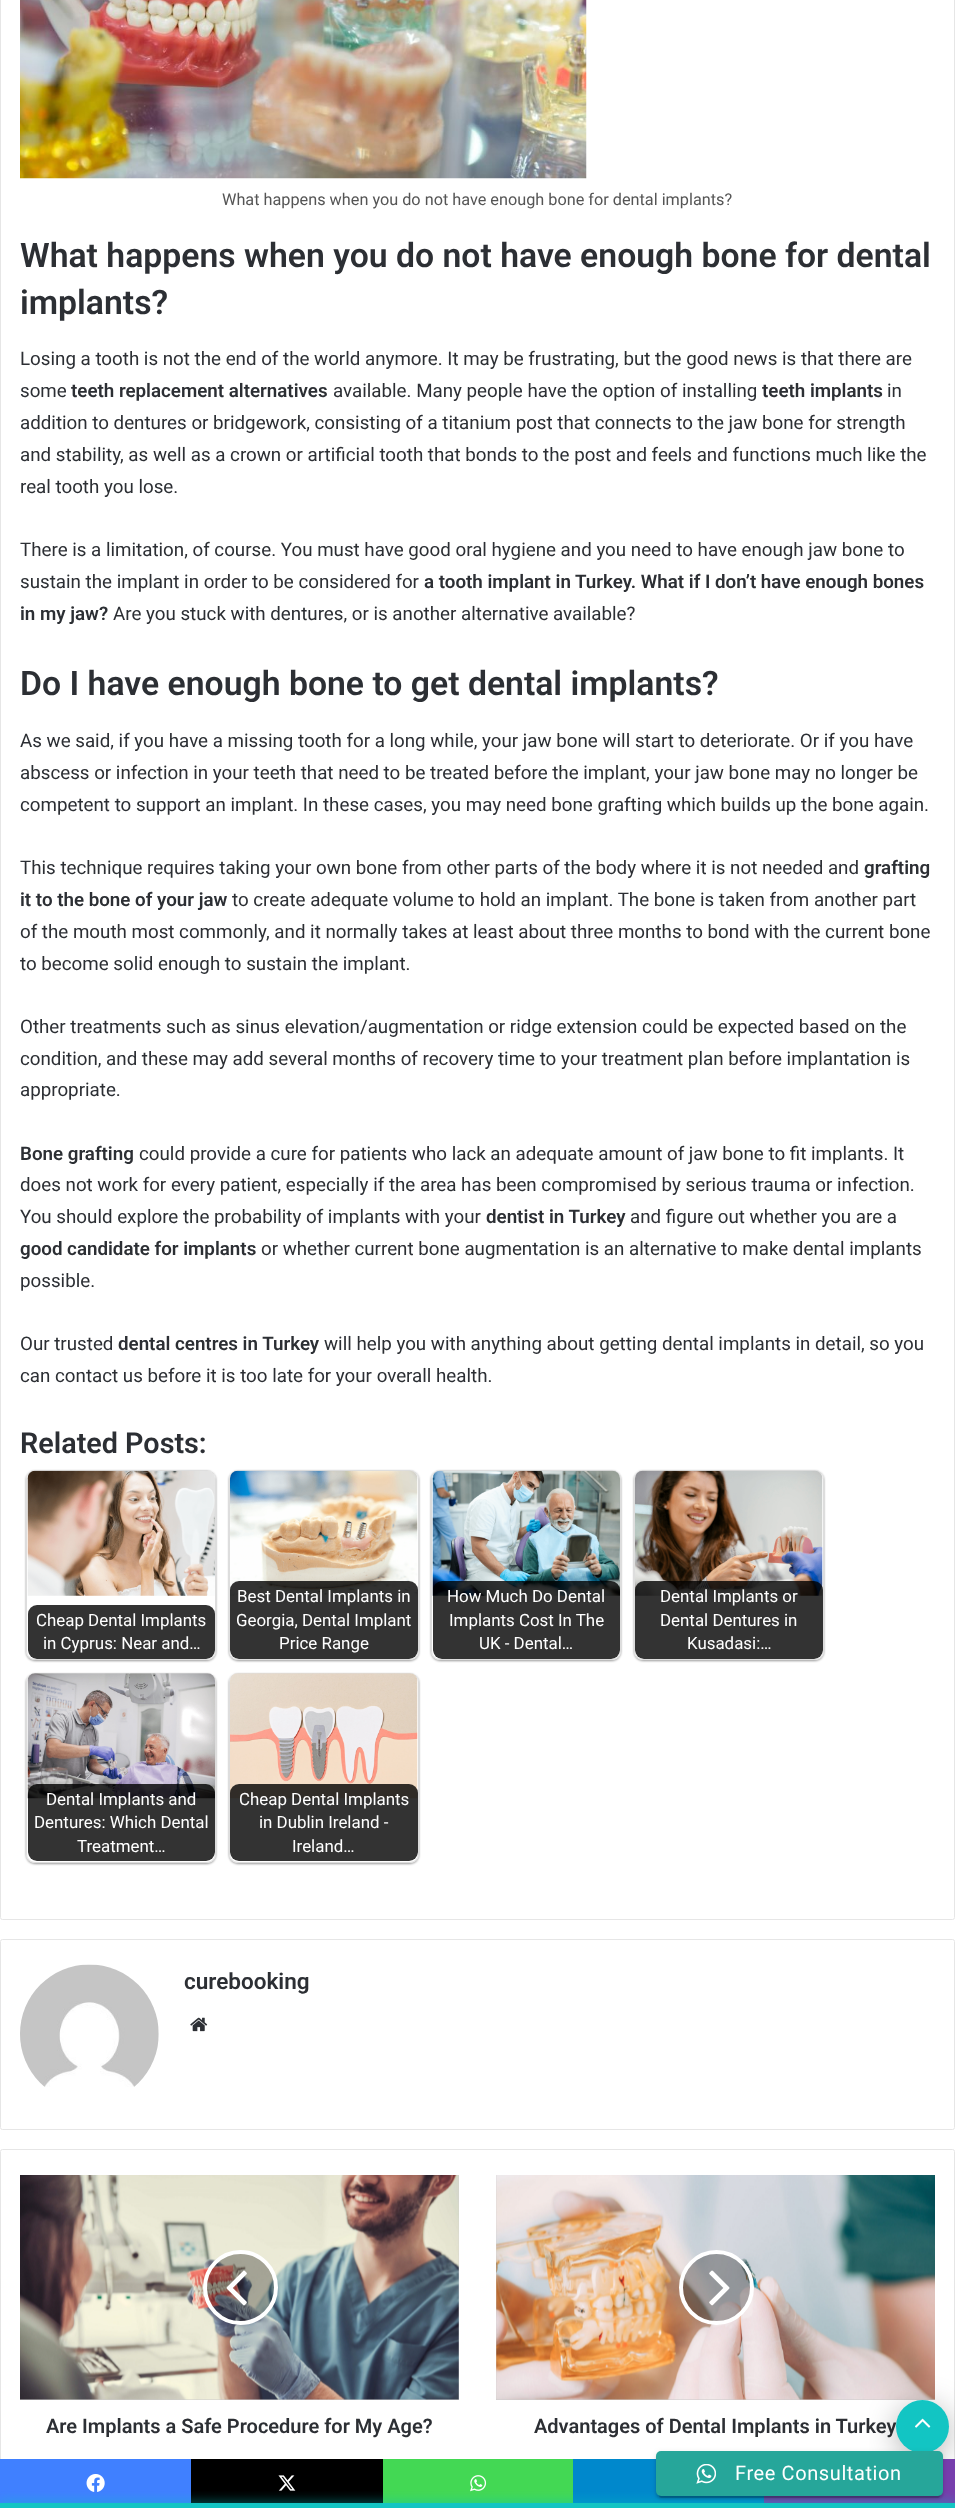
<svg xmlns="http://www.w3.org/2000/svg" width="955" height="2508" viewBox="0 0 955 2508">
  <defs>
    <clipPath id="clip1"><path d="M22 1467H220V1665H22ZM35 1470H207C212 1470 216 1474 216 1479V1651C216 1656 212 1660 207 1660H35C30 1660 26 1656 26 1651V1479C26 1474 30 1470 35 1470Z" clip-rule="evenodd"/></clipPath>
    <filter id="blur1" x="-50%" y="-200%" width="200%" height="500%"><feGaussianBlur stdDeviation="1"/></filter>
    <clipPath id="clip2"><rect x="28" y="1471" width="187" height="188" rx="8"/></clipPath>
    <clipPath id="clip3"><path d="M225 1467H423V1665H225ZM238 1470H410C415 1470 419 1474 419 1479V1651C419 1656 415 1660 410 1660H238C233 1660 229 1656 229 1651V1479C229 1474 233 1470 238 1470Z" clip-rule="evenodd"/></clipPath>
    <clipPath id="clip4"><rect x="230" y="1471" width="188" height="188" rx="8"/></clipPath>
    <clipPath id="clip5"><path d="M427 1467H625V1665H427ZM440 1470H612C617 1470 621 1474 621 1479V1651C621 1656 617 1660 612 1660H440C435 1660 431 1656 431 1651V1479C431 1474 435 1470 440 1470Z" clip-rule="evenodd"/></clipPath>
    <clipPath id="clip6"><rect x="433" y="1471" width="187" height="188" rx="8"/></clipPath>
    <clipPath id="clip7"><path d="M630 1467H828V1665H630ZM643 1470H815C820 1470 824 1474 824 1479V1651C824 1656 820 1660 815 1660H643C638 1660 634 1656 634 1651V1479C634 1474 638 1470 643 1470Z" clip-rule="evenodd"/></clipPath>
    <clipPath id="clip8"><rect x="635" y="1471" width="188" height="188" rx="8"/></clipPath>
    <clipPath id="clip9"><path d="M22 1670H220V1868H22ZM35 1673H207C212 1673 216 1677 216 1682V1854C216 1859 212 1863 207 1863H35C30 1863 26 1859 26 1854V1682C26 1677 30 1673 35 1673Z" clip-rule="evenodd"/></clipPath>
    <clipPath id="clip10"><rect x="28" y="1674" width="187" height="187" rx="8"/></clipPath>
    <clipPath id="clip11"><path d="M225 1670H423V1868H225ZM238 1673H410C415 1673 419 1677 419 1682V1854C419 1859 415 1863 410 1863H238C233 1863 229 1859 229 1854V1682C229 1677 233 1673 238 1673Z" clip-rule="evenodd"/></clipPath>
    <clipPath id="clip12"><rect x="230" y="1674" width="188" height="187" rx="8"/></clipPath>
    <filter id="blur2" x="-50%" y="-200%" width="200%" height="500%"><feGaussianBlur stdDeviation="15.5"/></filter>
    <filter id="blur3" x="-50%" y="-200%" width="200%" height="500%"><feGaussianBlur stdDeviation="0.5"/></filter>
    <filter id="blur4" x="-50%" y="-200%" width="200%" height="500%"><feGaussianBlur stdDeviation="6"/></filter>
    <filter id="blur5" x="-50%" y="-200%" width="200%" height="500%"><feGaussianBlur stdDeviation="3"/></filter>
  </defs>
  <rect width="100%" height="100%" fill="#ffffff"/>
  <rect x="0.5" y="-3.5" width="954" height="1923" rx="2" fill="none" stroke="#e6e6e6"/>
  <image x="20" y="0" width="567" height="179" href="img1.png"/>
  <text x="222" y="205" font-family="Roboto" font-size="16.25" fill="#555555">What happens when you do not have enough bone for dental implants?</text>
  <text x="20" y="267" font-family="Roboto" font-size="33.75" font-weight="600" fill="#2c2f34">What happens when you do not have enough bone for dental</text>
  <text x="20" y="314" font-family="Roboto" font-size="33.75" font-weight="600" fill="#2c2f34">implants?</text>
  <text x="20" y="365" font-family="Roboto" font-size="18.75" fill="#2c2f34">Losing a tooth is not the end of the world anymore. It may be frustrating, but the good news is that there are</text>
  <text x="20" y="397" font-family="Roboto" font-size="18.75" fill="#2c2f34">some</text>
  <text x="71" y="397" font-family="Roboto" font-size="18.75" font-weight="600" fill="#2c2f34">teeth replacement alternatives</text>
  <text x="333" y="397" font-family="Roboto" font-size="18.75" fill="#2c2f34">available. Many people have the option of installing</text>
  <text x="762" y="397" font-family="Roboto" font-size="18.75" font-weight="600" fill="#2c2f34">teeth implants</text>
  <text x="887" y="397" font-family="Roboto" font-size="18.75" fill="#2c2f34">in</text>
  <text x="20" y="429" font-family="Roboto" font-size="18.75" fill="#2c2f34">addition to dentures or bridgework, consisting of a titanium post that connects to the jaw bone for strength</text>
  <text x="20" y="461" font-family="Roboto" font-size="18.75" fill="#2c2f34">and stability, as well as a crown or artificial tooth that bonds to the post and feels and functions much like the</text>
  <text x="20" y="493" font-family="Roboto" font-size="18.75" fill="#2c2f34">real tooth you lose.</text>
  <text x="20" y="556" font-family="Roboto" font-size="18.75" fill="#2c2f34">There is a limitation, of course. You must have good oral hygiene and you need to have enough jaw bone to</text>
  <text x="20" y="588" font-family="Roboto" font-size="18.75" fill="#2c2f34">sustain the implant in order to be considered for</text>
  <text x="424" y="588" font-family="Roboto" font-size="18.75" font-weight="600" fill="#2c2f34">a tooth implant in Turkey. What if I don’t have enough bones</text>
  <text x="20" y="620" font-family="Roboto" font-size="18.75" font-weight="600" fill="#2c2f34">in my jaw?</text>
  <text x="113" y="620" font-family="Roboto" font-size="18.75" fill="#2c2f34">Are you stuck with dentures, or is another alternative available?</text>
  <text x="20" y="695" font-family="Roboto" font-size="33.75" font-weight="600" fill="#2c2f34">Do I have enough bone to get dental implants?</text>
  <text x="20" y="747" font-family="Roboto" font-size="18.75" fill="#2c2f34">As we said, if you have a missing tooth for a long while, your jaw bone will start to deteriorate. Or if you have</text>
  <text x="20" y="779" font-family="Roboto" font-size="18.75" fill="#2c2f34">abscess or infection in your teeth that need to be treated before the implant, your jaw bone may no longer be</text>
  <text x="20" y="811" font-family="Roboto" font-size="18.75" fill="#2c2f34">competent to support an implant. In these cases, you may need bone grafting which builds up the bone again.</text>
  <text x="20" y="874" font-family="Roboto" font-size="18.75" fill="#2c2f34">This technique requires taking your own bone from other parts of the body where it is not needed and</text>
  <text x="864" y="874" font-family="Roboto" font-size="18.75" font-weight="600" fill="#2c2f34">grafting</text>
  <text x="20" y="906" font-family="Roboto" font-size="18.75" font-weight="600" fill="#2c2f34">it to the bone of your jaw</text>
  <text x="232" y="906" font-family="Roboto" font-size="18.75" fill="#2c2f34">to create adequate volume to hold an implant. The bone is taken from another part</text>
  <text x="20" y="938" font-family="Roboto" font-size="18.75" fill="#2c2f34">of the mouth most commonly, and it normally takes at least about three months to bond with the current bone</text>
  <text x="20" y="970" font-family="Roboto" font-size="18.75" fill="#2c2f34">to become solid enough to sustain the implant.</text>
  <text x="20" y="1033" font-family="Roboto" font-size="18.75" fill="#2c2f34">Other treatments such as sinus elevation/augmentation or ridge extension could be expected based on the</text>
  <text x="20" y="1065" font-family="Roboto" font-size="18.75" fill="#2c2f34">condition, and these may add several months of recovery time to your treatment plan before implantation is</text>
  <text x="20" y="1096" font-family="Roboto" font-size="18.75" fill="#2c2f34">appropriate.</text>
  <text x="20" y="1160" font-family="Roboto" font-size="18.75" font-weight="600" fill="#2c2f34">Bone grafting</text>
  <text x="139" y="1160" font-family="Roboto" font-size="18.75" fill="#2c2f34">could provide a cure for patients who lack an adequate amount of jaw bone to fit implants. It</text>
  <text x="20" y="1191" font-family="Roboto" font-size="18.75" fill="#2c2f34">does not work for every patient, especially if the area has been compromised by serious trauma or infection.</text>
  <text x="20" y="1223" font-family="Roboto" font-size="18.75" fill="#2c2f34">You should explore the probability of implants with your</text>
  <text x="486" y="1223" font-family="Roboto" font-size="18.75" font-weight="600" fill="#2c2f34">dentist in Turkey</text>
  <text x="630" y="1223" font-family="Roboto" font-size="18.75" fill="#2c2f34">and figure out whether you are a</text>
  <text x="20" y="1255" font-family="Roboto" font-size="18.75" font-weight="600" fill="#2c2f34">good candidate for implants</text>
  <text x="261" y="1255" font-family="Roboto" font-size="18.75" fill="#2c2f34">or whether current bone augmentation is an alternative to make dental implants</text>
  <text x="20" y="1287" font-family="Roboto" font-size="18.75" fill="#2c2f34">possible.</text>
  <text x="20" y="1350" font-family="Roboto" font-size="18.75" fill="#2c2f34">Our trusted</text>
  <text x="118" y="1350" font-family="Roboto" font-size="18.75" font-weight="600" fill="#2c2f34">dental centres in Turkey</text>
  <text x="324" y="1350" font-family="Roboto" font-size="18.75" fill="#2c2f34">will help you with anything about getting dental implants in detail, so you</text>
  <text x="20" y="1382" font-family="Roboto" font-size="18.75" fill="#2c2f34">can contact us before it is too late for your overall health.</text>
  <text x="20" y="1453" font-family="Roboto" font-size="28.75" font-weight="600" fill="#2c2f34">Related Posts:</text>
  <g clip-path="url(#clip1)">
    <rect x="26" y="1471" width="190" height="190" rx="9" fill="#000000" fill-opacity="0.4" filter="url(#blur1)"/>
  </g>
  <rect x="26.5" y="1470.5" width="189" height="189" rx="8.5" fill="none" stroke="#dddddd"/>
  <image x="27" y="1470" width="188" height="126" href="img2.png"/>
  <g clip-path="url(#clip2)">
    <rect x="28" y="1605" width="187" height="54" rx="9" fill="#333333"/>
  </g>
  <text x="36" y="1626" font-family="Roboto" font-size="16.9" fill="#ffffff">Cheap Dental Implants</text>
  <text x="43" y="1649" font-family="Roboto" font-size="16.9" fill="#ffffff">in Cyprus: Near and…</text>
  <g clip-path="url(#clip3)">
    <rect x="229" y="1471" width="190" height="190" rx="9" fill="#000000" fill-opacity="0.4" filter="url(#blur1)"/>
  </g>
  <rect x="229.5" y="1470.5" width="189" height="189" rx="8.5" fill="none" stroke="#dddddd"/>
  <image x="230" y="1470" width="188" height="126" href="img3.png"/>
  <g clip-path="url(#clip4)">
    <rect x="230" y="1581" width="188" height="78" rx="9" fill="#000000" fill-opacity="0.8"/>
  </g>
  <text x="237" y="1602" font-family="Roboto" font-size="16.9" fill="#ffffff">Best Dental Implants in</text>
  <text x="236" y="1626" font-family="Roboto" font-size="16.9" fill="#ffffff">Georgia, Dental Implant</text>
  <text x="279" y="1649" font-family="Roboto" font-size="16.9" fill="#ffffff">Price Range</text>
  <g clip-path="url(#clip5)">
    <rect x="431" y="1471" width="190" height="190" rx="9" fill="#000000" fill-opacity="0.4" filter="url(#blur1)"/>
  </g>
  <rect x="431.5" y="1470.5" width="189" height="189" rx="8.5" fill="none" stroke="#dddddd"/>
  <image x="432" y="1470" width="188" height="126" href="img4.png"/>
  <g clip-path="url(#clip6)">
    <rect x="433" y="1581" width="187" height="78" rx="9" fill="#000000" fill-opacity="0.8"/>
  </g>
  <text x="447" y="1602" font-family="Roboto" font-size="16.9" fill="#ffffff">How Much Do Dental</text>
  <text x="449" y="1626" font-family="Roboto" font-size="16.9" fill="#ffffff">Implants Cost In The</text>
  <text x="479" y="1649" font-family="Roboto" font-size="16.9" fill="#ffffff">UK - Dental…</text>
  <g clip-path="url(#clip7)">
    <rect x="634" y="1471" width="190" height="190" rx="9" fill="#000000" fill-opacity="0.4" filter="url(#blur1)"/>
  </g>
  <rect x="634.5" y="1470.5" width="189" height="189" rx="8.5" fill="none" stroke="#dddddd"/>
  <image x="635" y="1470" width="188" height="126" href="img5.png"/>
  <g clip-path="url(#clip8)">
    <rect x="635" y="1581" width="188" height="78" rx="9" fill="#000000" fill-opacity="0.8"/>
  </g>
  <text x="660" y="1602" font-family="Roboto" font-size="16.9" fill="#ffffff">Dental Implants or</text>
  <text x="660" y="1626" font-family="Roboto" font-size="16.9" fill="#ffffff">Dental Dentures in</text>
  <text x="687" y="1649" font-family="Roboto" font-size="16.9" fill="#ffffff">Kusadasi:…</text>
  <g clip-path="url(#clip9)">
    <rect x="26" y="1674" width="190" height="190" rx="9" fill="#000000" fill-opacity="0.4" filter="url(#blur1)"/>
  </g>
  <rect x="26.5" y="1673.5" width="189" height="189" rx="8.5" fill="none" stroke="#dddddd"/>
  <image x="27" y="1673" width="188" height="126" href="img6.png"/>
  <g clip-path="url(#clip10)">
    <rect x="28" y="1784" width="187" height="77" rx="9" fill="#000000" fill-opacity="0.8"/>
  </g>
  <text x="46" y="1805" font-family="Roboto" font-size="16.9" fill="#ffffff">Dental Implants and</text>
  <text x="34" y="1828" font-family="Roboto" font-size="16.9" fill="#ffffff">Dentures: Which Dental</text>
  <text x="77" y="1852" font-family="Roboto" font-size="16.9" fill="#ffffff">Treatment…</text>
  <g clip-path="url(#clip11)">
    <rect x="229" y="1674" width="190" height="190" rx="9" fill="#000000" fill-opacity="0.4" filter="url(#blur1)"/>
  </g>
  <rect x="229.5" y="1673.5" width="189" height="189" rx="8.5" fill="none" stroke="#dddddd"/>
  <image x="230" y="1673" width="188" height="126" href="img7.png"/>
  <g clip-path="url(#clip12)">
    <rect x="230" y="1784" width="188" height="77" rx="9" fill="#000000" fill-opacity="0.8"/>
  </g>
  <text x="239" y="1805" font-family="Roboto" font-size="16.9" fill="#ffffff">Cheap Dental Implants</text>
  <text x="259" y="1828" font-family="Roboto" font-size="16.9" fill="#ffffff">in Dublin Ireland -</text>
  <text x="292" y="1852" font-family="Roboto" font-size="16.9" fill="#ffffff">Ireland…</text>
  <rect x="0.5" y="1939.5" width="954" height="190" rx="2" fill="none" stroke="#e6e6e6"/>
  <image x="20" y="1964" width="139" height="123" href="img8.png"/>
  <text x="184" y="1989" font-family="Roboto" font-size="22.5" font-weight="600" fill="#2c2f34">curebooking</text>
  <image x="190" y="2017" width="18" height="15" href="img9.png"/>
  <rect x="0.5" y="2149.5" width="954" height="316" rx="2" fill="none" stroke="#e6e6e6"/>
  <rect x="20" y="2175" width="439" height="225" fill="#cccccc"/>
  <image x="20" y="2175" width="439" height="225" href="img10.png"/>
  <circle cx="240.5" cy="2287.5" r="35.5" fill="#000000" fill-opacity="0.3" stroke="#ffffff" stroke-width="4"/>
  <image x="226" y="2270" width="21" height="36" href="img11.png"/>
  <text x="46" y="2433" font-family="Roboto" font-size="20" font-weight="600" fill="#2c2f34">Are Implants a Safe Procedure for My Age?</text>
  <rect x="496" y="2175" width="439" height="225" fill="#cccccc"/>
  <image x="496" y="2175" width="439" height="225" href="img12.png"/>
  <circle cx="716.5" cy="2287.5" r="35.5" fill="#000000" fill-opacity="0.3" stroke="#ffffff" stroke-width="4"/>
  <image x="709" y="2270" width="21" height="36" href="img13.png"/>
  <text x="534" y="2433" font-family="Roboto" font-size="20" font-weight="600" fill="#2c2f34">Advantages of Dental Implants in Turkey</text>
  <rect x="896" y="2406" width="53" height="53" rx="26.5" fill="#000000" fill-opacity="0.3" filter="url(#blur2)"/>
  <circle cx="922.5" cy="2426.5" r="26.5" fill="#12c5c3"/>
  <image x="915" y="2418" width="16" height="10" href="img14.png"/>
  <rect x="0" y="2459" width="191" height="44" fill="#4080ff"/>
  <image x="86" y="2474" width="19" height="18" href="img15.png"/>
  <rect x="191" y="2459" width="192" height="44" fill="#000000"/>
  <image x="278" y="2475" width="18" height="16" href="img16.png"/>
  <rect x="383" y="2459" width="190" height="44" fill="#43d854"/>
  <image x="470" y="2475" width="17" height="17" href="img17.png"/>
  <rect x="573" y="2459" width="191" height="44" fill="#0088cc"/>
  <rect x="764" y="2459" width="191" height="44" fill="#773ead"/>
  <rect x="659" y="2458" width="281" height="40" rx="2.5" fill="#000000" fill-opacity="0.2" filter="url(#blur3)"/>
  <rect x="0" y="2503" width="955" height="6" fill="#12c5c3" fill-opacity="0.7" filter="url(#blur4)"/>
  <rect x="0" y="2503" width="955" height="5" fill="#12c5c3"/>
  <rect x="656" y="2453" width="287" height="45" rx="5" fill="#000000" fill-opacity="0.12" filter="url(#blur5)"/>
  <rect x="656" y="2454" width="287" height="45" rx="5" fill="#000000" fill-opacity="0.14" filter="url(#blur1)"/>
  <rect x="656" y="2451" width="287" height="45" rx="5" fill="#26a69a"/>
  <image x="696" y="2464" width="20" height="20" href="img18.png"/>
  <text x="735" y="2480" font-family="Roboto" font-size="20" letter-spacing="0.6" fill="#ffffff">Free Consultation</text>
</svg>
